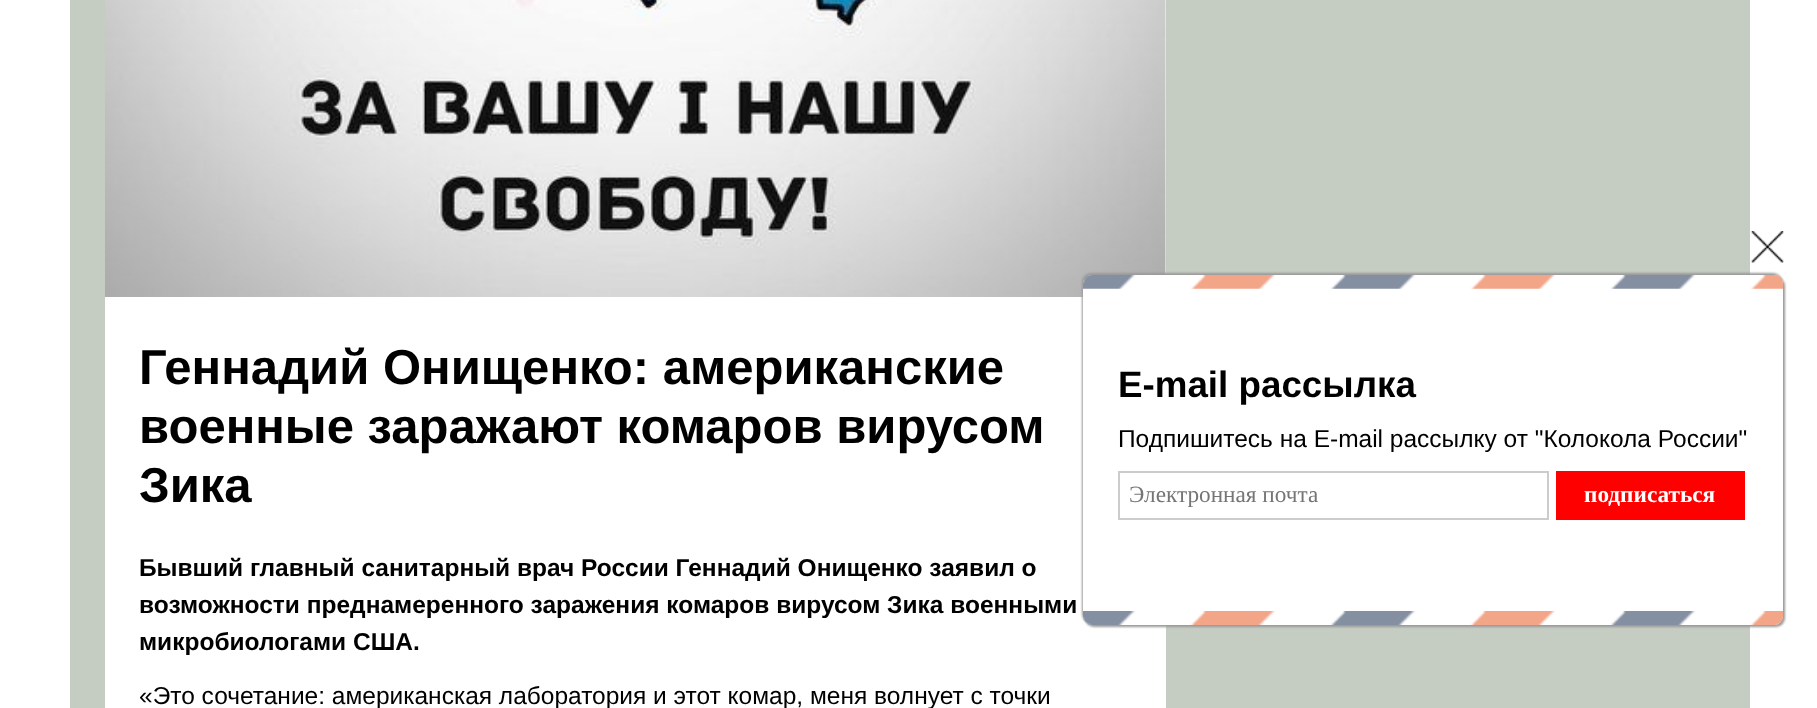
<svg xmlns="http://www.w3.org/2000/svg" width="1817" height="708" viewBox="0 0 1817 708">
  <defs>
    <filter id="blur1" x="-50%" y="-200%" width="200%" height="500%"><feGaussianBlur stdDeviation="1"/></filter>
  </defs>
  <rect width="100%" height="100%" fill="#ffffff"/>
  <rect x="70" y="0" width="1680" height="708" fill="#c5ccc2"/>
  <rect x="105" y="0" width="1061" height="708" fill="#ffffff"/>
  <image x="105" y="0" width="1061" height="297" href="img1.png"/>
  <text x="139" y="384" font-family="Liberation Sans" font-size="49" font-weight="bold" fill="#000000">Геннадий Онищенко: американские</text>
  <text x="139" y="443" font-family="Liberation Sans" font-size="49" font-weight="bold" fill="#000000">военные заражают комаров вирусом</text>
  <text x="139" y="502" font-family="Liberation Sans" font-size="49" font-weight="bold" fill="#000000">Зика</text>
  <text x="139" y="576" font-family="Liberation Sans" font-size="24.5" font-weight="bold" fill="#000000">Бывший главный санитарный врач России Геннадий Онищенко заявил о</text>
  <text x="139" y="613" font-family="Liberation Sans" font-size="24.5" font-weight="bold" fill="#000000">возможности преднамеренного заражения комаров вирусом Зика военными</text>
  <text x="139" y="650" font-family="Liberation Sans" font-size="24.5" font-weight="bold" fill="#000000">микробиологами США.</text>
  <text x="139" y="704" font-family="Liberation Sans" font-size="24.5" fill="#000000">«Это сочетание: американская лаборатория и этот комар, меня волнует с точки</text>
  <rect x="1085" y="277" width="700" height="350" rx="9" fill="#999999" filter="url(#blur1)"/>
  <rect x="1082" y="273" width="700" height="350" rx="9" fill="#999999" filter="url(#blur1)"/>
  <rect x="1083" y="275" width="700" height="350" rx="9" fill="#ffffff"/>
  <image x="1083" y="275" width="700" height="14" href="img2.png"/>
  <image x="1751" y="231" width="33" height="32" href="img3.png"/>
  <text x="1118" y="397" font-family="Liberation Sans" font-size="36.75" font-weight="bold" fill="#000000">E-mail рассылка</text>
  <text x="1118" y="447" font-family="Liberation Sans" font-size="24.5" fill="#000000">Подпишитесь на E-mail рассылку от "Колокола России"</text>
  <rect x="1119" y="472" width="429" height="47" fill="none" stroke="#cccccc" stroke-width="2"/>
  <text x="1129" y="502" font-family="Liberation Serif" font-size="23.25" fill="#757575">Электронная почта</text>
  <rect x="1556" y="471" width="189" height="49" fill="#ff0000"/>
  <text x="1584" y="502" font-family="Liberation Serif" font-size="23.25" font-weight="bold" fill="#ffffff">подписаться</text>
  <image x="1083" y="611" width="700" height="14" href="img4.png"/>
</svg>
